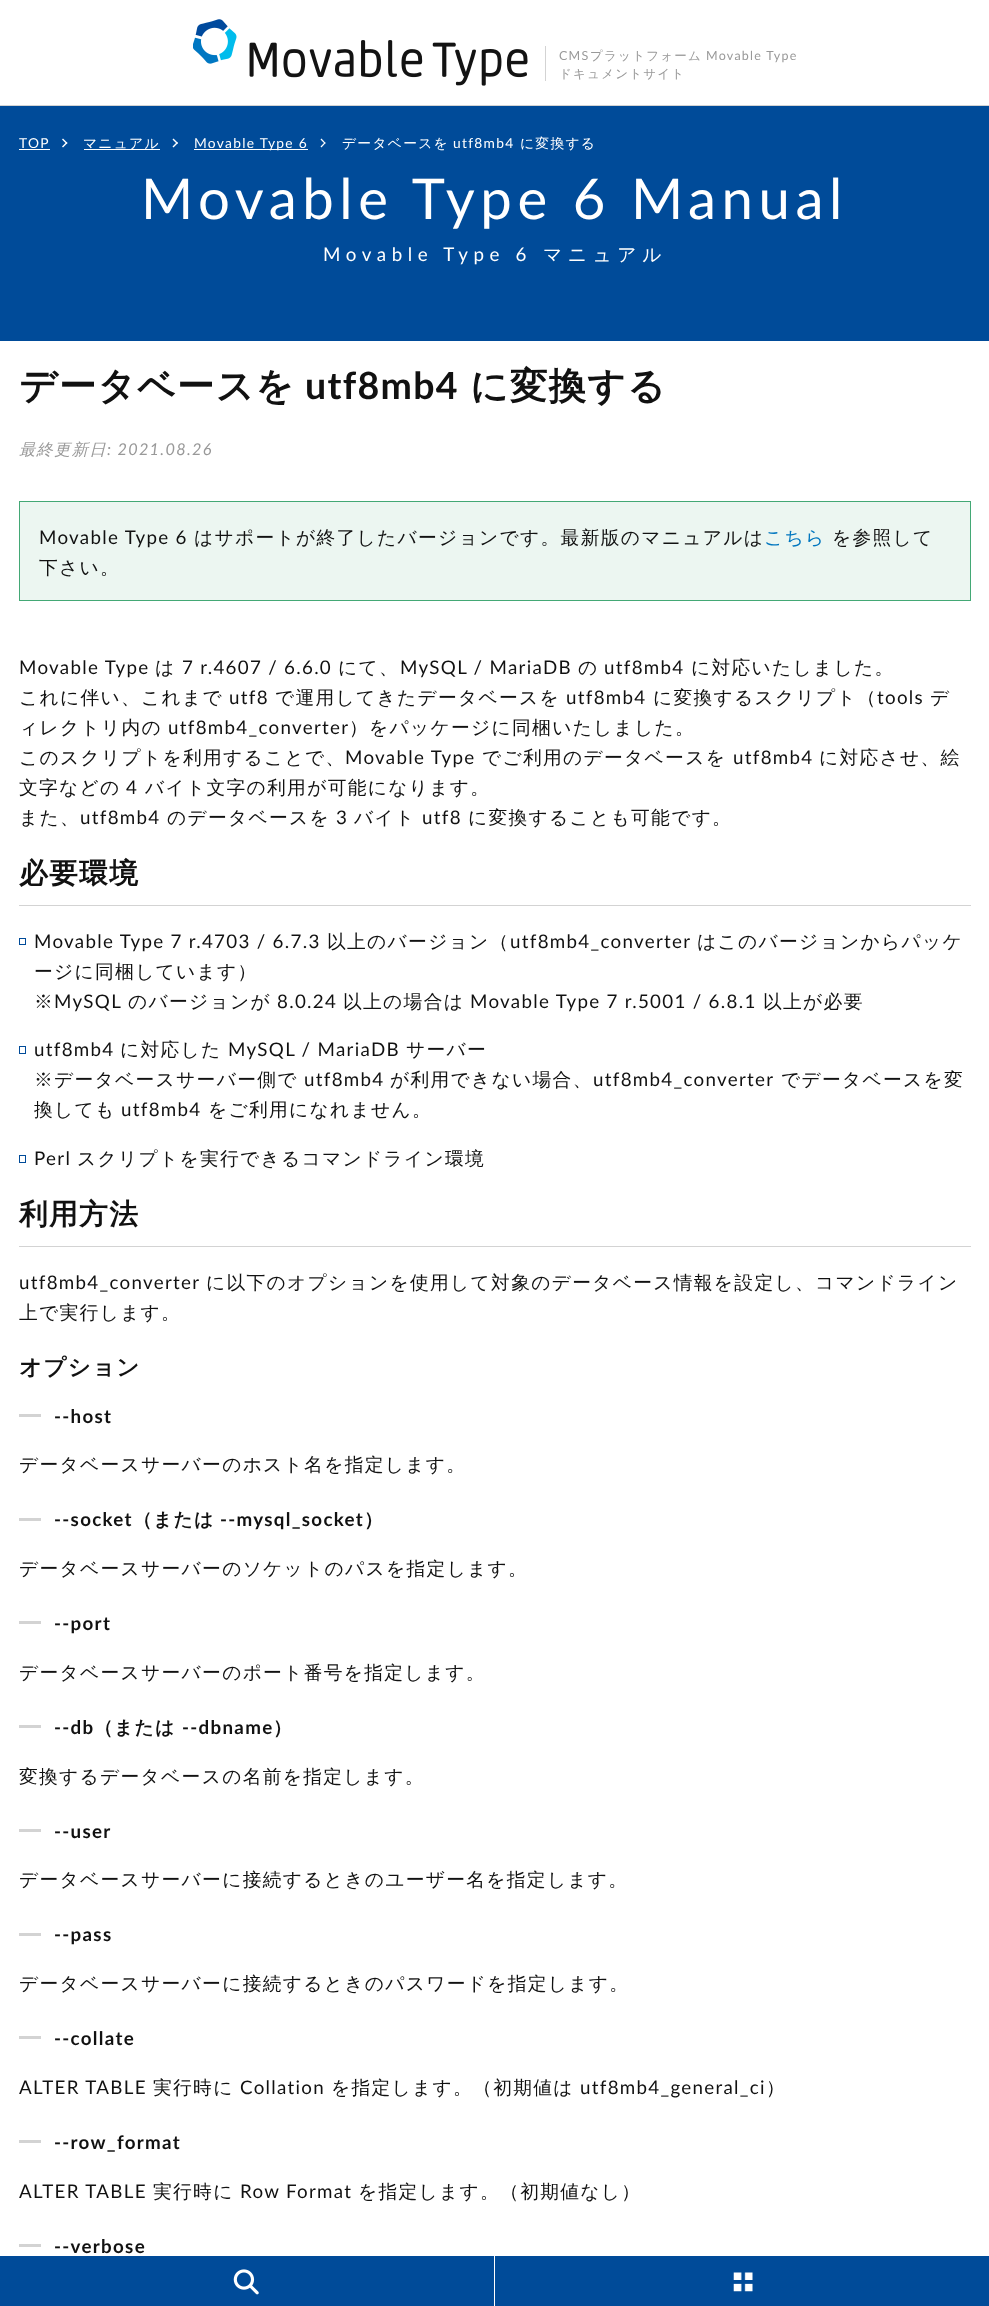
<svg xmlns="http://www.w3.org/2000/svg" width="989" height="2306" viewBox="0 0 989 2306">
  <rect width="100%" height="100%" fill="#ffffff"/>
  <rect x="0" y="105" width="989" height="1" fill="#d3d3d3"/>
  <image x="193" y="19" width="335" height="67" href="img1.png"/>
  <rect x="545" y="46" width="1" height="35" fill="#d3d3d3"/>
  <text x="559" y="60" font-family="Lato" font-size="12.5" letter-spacing="1.25" fill="#999999">CMS</text>
  <text x="590" y="60" font-family="WenQuanYi Zen Hei" font-size="12.5" font-weight="500" letter-spacing="1.25" fill="#999999">プラットフォーム</text>
  <text x="706" y="60" font-family="Lato" font-size="12.5" letter-spacing="1.25" fill="#999999">Movable Type</text>
  <text x="559" y="78" font-family="WenQuanYi Zen Hei" font-size="12.5" font-weight="500" letter-spacing="1.25" fill="#999999">ドキュメントサイト</text>
  <rect x="0" y="106" width="989" height="235" fill="#004b99"/>
  <text x="19" y="148" font-family="Lato" font-size="13.75" letter-spacing="1.3" fill="#ffffff">TOP</text>
  <rect x="19" y="149" width="31" height="1" fill="#ffffff"/>
  <path d="M67.5 143L63 147.5L62 146.5L66.5 142Z" fill="#ffffff"/>
  <path d="M67.5 143L66.5 144L62 139.5L63 138.5Z" fill="#ffffff"/>
  <rect x="84" y="149" width="76" height="1" fill="#ffffff"/>
  <text x="83" y="148" font-family="WenQuanYi Zen Hei" font-size="13.75" font-weight="500" letter-spacing="1.3" fill="#ffffff">マニュアル</text>
  <path d="M178 143L173.5 147.5L172.5 146.5L177 142Z" fill="#ffffff"/>
  <path d="M178 143L177 144L172.5 139.5L173.5 138.5Z" fill="#ffffff"/>
  <rect x="194" y="149" width="114" height="1" fill="#ffffff"/>
  <text x="194" y="148" font-family="Lato" font-size="13.75" letter-spacing="1.3" fill="#ffffff">Movable Type 6</text>
  <path d="M325.5 143L321.5 147.5L320.5 146.5L325 142Z" fill="#ffffff"/>
  <path d="M325.5 143L325 144L320.5 139.5L321.5 138.5Z" fill="#ffffff"/>
  <text x="342" y="148" font-family="WenQuanYi Zen Hei" font-size="13.75" font-weight="500" letter-spacing="1.3" fill="#ffffff">データベースを</text>
  <text x="453" y="148" font-family="Lato" font-size="13.75" letter-spacing="1.3" fill="#ffffff">utf8mb4</text>
  <text x="520" y="148" font-family="WenQuanYi Zen Hei" font-size="13.75" font-weight="500" letter-spacing="1.3" fill="#ffffff">に変換する</text>
  <text x="141" y="219" font-family="Lato" font-size="56.25" letter-spacing="5.6" fill="#ffffff">Movable Type 6 Manual</text>
  <text x="323" y="261" font-family="Lato" font-size="18.75" letter-spacing="5.6" fill="#ffffff">Movable Type 6</text>
  <text x="543" y="261" font-family="WenQuanYi Zen Hei" font-size="18.75" font-weight="500" letter-spacing="5.6" fill="#ffffff">マニュアル</text>
  <text x="19" y="399" font-family="WenQuanYi Zen Hei" font-size="37.5" font-weight="bold" letter-spacing="1.3" fill="#111111">データベースを</text>
  <text x="305" y="399" font-family="Lato" font-size="37.5" font-weight="bold" letter-spacing="1.3" fill="#111111">utf8mb4</text>
  <text x="470" y="399" font-family="WenQuanYi Zen Hei" font-size="37.5" font-weight="bold" letter-spacing="1.3" fill="#111111">に変換する</text>
  <text x="19" y="455" font-family="WenQuanYi Zen Hei" font-size="16.25" font-weight="500" font-style="italic" letter-spacing="1.3" fill="#999999">最終更新日</text>
  <text x="107" y="455" font-family="Lato" font-size="16.25" font-style="italic" letter-spacing="1.3" fill="#999999">: 2021.08.26</text>
  <rect x="19.5" y="501.5" width="951" height="99" fill="#ecf6f1" stroke="#43a875"/>
  <text x="39" y="544" font-family="Lato" font-size="18.75" letter-spacing="1.3" fill="#111111">Movable Type 6</text>
  <text x="194" y="544" font-family="WenQuanYi Zen Hei" font-size="18.75" font-weight="500" letter-spacing="1.3" fill="#111111">はサポートが終了したバージョンです。最新版のマニュアルは</text>
  <text x="764" y="544" font-family="WenQuanYi Zen Hei" font-size="18.75" font-weight="500" letter-spacing="1.3" fill="#0076bf">こちら</text>
  <text x="832" y="544" font-family="WenQuanYi Zen Hei" font-size="18.75" font-weight="500" letter-spacing="1.3" fill="#111111">を参照して</text>
  <text x="39" y="574" font-family="WenQuanYi Zen Hei" font-size="18.75" font-weight="500" letter-spacing="1.3" fill="#111111">下さい。</text>
  <text x="19" y="674" font-family="Lato" font-size="18.75" letter-spacing="1.3" fill="#111111">Movable Type</text>
  <text x="155" y="674" font-family="WenQuanYi Zen Hei" font-size="18.75" font-weight="500" letter-spacing="1.3" fill="#111111">は</text>
  <text x="182" y="674" font-family="Lato" font-size="18.75" letter-spacing="1.3" fill="#111111">7 r.4607 / 6.6.0</text>
  <text x="338" y="674" font-family="WenQuanYi Zen Hei" font-size="18.75" font-weight="500" letter-spacing="1.3" fill="#111111">にて、</text>
  <text x="400" y="674" font-family="Lato" font-size="18.75" letter-spacing="1.3" fill="#111111">MySQL / MariaDB</text>
  <text x="578" y="674" font-family="WenQuanYi Zen Hei" font-size="18.75" font-weight="500" letter-spacing="1.3" fill="#111111">の</text>
  <text x="604" y="674" font-family="Lato" font-size="18.75" letter-spacing="1.3" fill="#111111">utf8mb4</text>
  <text x="691" y="674" font-family="WenQuanYi Zen Hei" font-size="18.75" font-weight="500" letter-spacing="1.3" fill="#111111">に対応いたしました。</text>
  <text x="19" y="704" font-family="WenQuanYi Zen Hei" font-size="18.75" font-weight="500" letter-spacing="1.3" fill="#111111">これに伴い、これまで</text>
  <text x="229" y="704" font-family="Lato" font-size="18.75" letter-spacing="1.3" fill="#111111">utf8</text>
  <text x="275" y="704" font-family="WenQuanYi Zen Hei" font-size="18.75" font-weight="500" letter-spacing="1.3" fill="#111111">で運用してきたデータベースを</text>
  <text x="566" y="704" font-family="Lato" font-size="18.75" letter-spacing="1.3" fill="#111111">utf8mb4</text>
  <text x="653" y="704" font-family="WenQuanYi Zen Hei" font-size="18.75" font-weight="500" letter-spacing="1.3" fill="#111111">に変換するスクリプト（</text>
  <text x="877" y="704" font-family="Lato" font-size="18.75" letter-spacing="1.3" fill="#111111">tools</text>
  <text x="930" y="704" font-family="WenQuanYi Zen Hei" font-size="18.75" font-weight="500" letter-spacing="1.3" fill="#111111">デ</text>
  <text x="19" y="734" font-family="WenQuanYi Zen Hei" font-size="18.75" font-weight="500" letter-spacing="1.3" fill="#111111">ィレクトリ内の</text>
  <text x="168" y="734" font-family="Lato" font-size="18.75" letter-spacing="1.3" fill="#111111">utf8mb4_converter</text>
  <text x="349" y="734" font-family="WenQuanYi Zen Hei" font-size="18.75" font-weight="500" letter-spacing="1.3" fill="#111111">）をパッケージに同梱いたしました。</text>
  <text x="19" y="764" font-family="WenQuanYi Zen Hei" font-size="18.75" font-weight="500" letter-spacing="1.3" fill="#111111">このスクリプトを利用することで、</text>
  <text x="345" y="764" font-family="Lato" font-size="18.75" letter-spacing="1.3" fill="#111111">Movable Type</text>
  <text x="482" y="764" font-family="WenQuanYi Zen Hei" font-size="18.75" font-weight="500" letter-spacing="1.3" fill="#111111">でご利用のデータベースを</text>
  <text x="733" y="764" font-family="Lato" font-size="18.75" letter-spacing="1.3" fill="#111111">utf8mb4</text>
  <text x="819" y="764" font-family="WenQuanYi Zen Hei" font-size="18.75" font-weight="500" letter-spacing="1.3" fill="#111111">に対応させ、絵</text>
  <text x="19" y="794" font-family="WenQuanYi Zen Hei" font-size="18.75" font-weight="500" letter-spacing="1.3" fill="#111111">文字などの</text>
  <text x="126" y="794" font-family="Lato" font-size="18.75" letter-spacing="1.3" fill="#111111">4</text>
  <text x="145" y="794" font-family="WenQuanYi Zen Hei" font-size="18.75" font-weight="500" letter-spacing="1.3" fill="#111111">バイト文字の利用が可能になります。</text>
  <text x="19" y="824" font-family="WenQuanYi Zen Hei" font-size="18.75" font-weight="500" letter-spacing="1.3" fill="#111111">また、</text>
  <text x="80" y="824" font-family="Lato" font-size="18.75" letter-spacing="1.3" fill="#111111">utf8mb4</text>
  <text x="167" y="824" font-family="WenQuanYi Zen Hei" font-size="18.75" font-weight="500" letter-spacing="1.3" fill="#111111">のデータベースを</text>
  <text x="336" y="824" font-family="Lato" font-size="18.75" letter-spacing="1.3" fill="#111111">3</text>
  <text x="354" y="824" font-family="WenQuanYi Zen Hei" font-size="18.75" font-weight="500" letter-spacing="1.3" fill="#111111">バイト</text>
  <text x="422" y="824" font-family="Lato" font-size="18.75" letter-spacing="1.3" fill="#111111">utf8</text>
  <text x="468" y="824" font-family="WenQuanYi Zen Hei" font-size="18.75" font-weight="500" letter-spacing="1.3" fill="#111111">に変換することも可能です。</text>
  <rect x="19" y="905" width="952" height="1" fill="#d3d3d3"/>
  <text x="19" y="883" font-family="WenQuanYi Zen Hei" font-size="28.75" font-weight="bold" letter-spacing="1.3" fill="#111111">必要環境</text>
  <rect x="19.5" y="938.5" width="6" height="6" fill="none" stroke="#004b99"/>
  <text x="34" y="948" font-family="Lato" font-size="18.75" letter-spacing="1.3" fill="#111111">Movable Type 7 r.4703 / 6.7.3</text>
  <text x="327" y="948" font-family="WenQuanYi Zen Hei" font-size="18.75" font-weight="500" letter-spacing="1.3" fill="#111111">以上のバージョン（</text>
  <text x="510" y="948" font-family="Lato" font-size="18.75" letter-spacing="1.3" fill="#111111">utf8mb4_converter</text>
  <text x="697" y="948" font-family="WenQuanYi Zen Hei" font-size="18.75" font-weight="500" letter-spacing="1.3" fill="#111111">はこのバージョンからパッケ</text>
  <text x="34" y="978" font-family="WenQuanYi Zen Hei" font-size="18.75" font-weight="500" letter-spacing="1.3" fill="#111111">ージに同梱しています）</text>
  <text x="34" y="1008" font-family="WenQuanYi Zen Hei" font-size="18.75" font-weight="500" letter-spacing="1.3" fill="#111111">※</text>
  <text x="54" y="1008" font-family="Lato" font-size="18.75" letter-spacing="1.3" fill="#111111">MySQL</text>
  <text x="128" y="1008" font-family="WenQuanYi Zen Hei" font-size="18.75" font-weight="500" letter-spacing="1.3" fill="#111111">のバージョンが</text>
  <text x="277" y="1008" font-family="Lato" font-size="18.75" letter-spacing="1.3" fill="#111111">8.0.24</text>
  <text x="343" y="1008" font-family="WenQuanYi Zen Hei" font-size="18.75" font-weight="500" letter-spacing="1.3" fill="#111111">以上の場合は</text>
  <text x="470" y="1008" font-family="Lato" font-size="18.75" letter-spacing="1.3" fill="#111111">Movable Type 7 r.5001 / 6.8.1</text>
  <text x="763" y="1008" font-family="WenQuanYi Zen Hei" font-size="18.75" font-weight="500" letter-spacing="1.3" fill="#111111">以上が必要</text>
  <rect x="19.5" y="1046.5" width="6" height="7" fill="none" stroke="#004b99"/>
  <text x="34" y="1056" font-family="Lato" font-size="18.75" letter-spacing="1.3" fill="#111111">utf8mb4</text>
  <text x="120" y="1056" font-family="WenQuanYi Zen Hei" font-size="18.75" font-weight="500" letter-spacing="1.3" fill="#111111">に対応した</text>
  <text x="228" y="1056" font-family="Lato" font-size="18.75" letter-spacing="1.3" fill="#111111">MySQL / MariaDB</text>
  <text x="406" y="1056" font-family="WenQuanYi Zen Hei" font-size="18.75" font-weight="500" letter-spacing="1.3" fill="#111111">サーバー</text>
  <text x="34" y="1086" font-family="WenQuanYi Zen Hei" font-size="18.75" font-weight="500" letter-spacing="1.3" fill="#111111">※データベースサーバー側で</text>
  <text x="304" y="1086" font-family="Lato" font-size="18.75" letter-spacing="1.3" fill="#111111">utf8mb4</text>
  <text x="390" y="1086" font-family="WenQuanYi Zen Hei" font-size="18.75" font-weight="500" letter-spacing="1.3" fill="#111111">が利用できない場合、</text>
  <text x="593" y="1086" font-family="Lato" font-size="18.75" letter-spacing="1.3" fill="#111111">utf8mb4_converter</text>
  <text x="781" y="1086" font-family="WenQuanYi Zen Hei" font-size="18.75" font-weight="500" letter-spacing="1.3" fill="#111111">でデータベースを変</text>
  <text x="34" y="1116" font-family="WenQuanYi Zen Hei" font-size="18.75" font-weight="500" letter-spacing="1.3" fill="#111111">換しても</text>
  <text x="121" y="1116" font-family="Lato" font-size="18.75" letter-spacing="1.3" fill="#111111">utf8mb4</text>
  <text x="208" y="1116" font-family="WenQuanYi Zen Hei" font-size="18.75" font-weight="500" letter-spacing="1.3" fill="#111111">をご利用になれません。</text>
  <rect x="19.5" y="1155.5" width="6" height="7" fill="none" stroke="#004b99"/>
  <text x="34" y="1165" font-family="Lato" font-size="18.75" letter-spacing="1.3" fill="#111111">Perl</text>
  <text x="77" y="1165" font-family="WenQuanYi Zen Hei" font-size="18.75" font-weight="500" letter-spacing="1.3" fill="#111111">スクリプトを実行できるコマンドライン環境</text>
  <rect x="19" y="1246" width="952" height="1" fill="#d3d3d3"/>
  <text x="19" y="1224" font-family="WenQuanYi Zen Hei" font-size="28.75" font-weight="bold" letter-spacing="1.3" fill="#111111">利用方法</text>
  <text x="19" y="1289" font-family="Lato" font-size="18.75" letter-spacing="1.3" fill="#111111">utf8mb4_converter</text>
  <text x="206" y="1289" font-family="WenQuanYi Zen Hei" font-size="18.75" font-weight="500" letter-spacing="1.3" fill="#111111">に以下のオプションを使用して対象のデータベース情報を設定し、コマンドライン</text>
  <text x="19" y="1319" font-family="WenQuanYi Zen Hei" font-size="18.75" font-weight="500" letter-spacing="1.3" fill="#111111">上で実行します。</text>
  <text x="19" y="1375" font-family="WenQuanYi Zen Hei" font-size="22.5" font-weight="bold" letter-spacing="1.3" fill="#111111">オプション</text>
  <rect x="19" y="1414" width="22" height="3" fill="#d3d3d3"/>
  <text x="54" y="1423" font-family="Lato" font-size="18.75" font-weight="bold" letter-spacing="1.3" fill="#111111">--host</text>
  <text x="19" y="1471" font-family="WenQuanYi Zen Hei" font-size="18.75" font-weight="500" letter-spacing="1.3" fill="#111111">データベースサーバーのホスト名を指定します。</text>
  <rect x="19" y="1518" width="22" height="3" fill="#d3d3d3"/>
  <text x="54" y="1526" font-family="Lato" font-size="18.75" font-weight="bold" letter-spacing="1.3" fill="#111111">--socket</text>
  <text x="133" y="1526" font-family="WenQuanYi Zen Hei" font-size="18.75" font-weight="bold" letter-spacing="1.3" fill="#111111">（または</text>
  <text x="220" y="1526" font-family="Lato" font-size="18.75" font-weight="bold" letter-spacing="1.3" fill="#111111">--mysql_socket</text>
  <text x="364" y="1526" font-family="WenQuanYi Zen Hei" font-size="18.75" font-weight="bold" letter-spacing="1.3" fill="#111111">）</text>
  <text x="19" y="1575" font-family="WenQuanYi Zen Hei" font-size="18.75" font-weight="500" letter-spacing="1.3" fill="#111111">データベースサーバーのソケットのパスを指定します。</text>
  <rect x="19" y="1621" width="22" height="3" fill="#d3d3d3"/>
  <text x="54" y="1630" font-family="Lato" font-size="18.75" font-weight="bold" letter-spacing="1.3" fill="#111111">--port</text>
  <text x="19" y="1679" font-family="WenQuanYi Zen Hei" font-size="18.75" font-weight="500" letter-spacing="1.3" fill="#111111">データベースサーバーのポート番号を指定します。</text>
  <rect x="19" y="1725" width="22" height="3" fill="#d3d3d3"/>
  <text x="54" y="1734" font-family="Lato" font-size="18.75" font-weight="bold" letter-spacing="1.3" fill="#111111">--db</text>
  <text x="94" y="1734" font-family="WenQuanYi Zen Hei" font-size="18.75" font-weight="bold" letter-spacing="1.3" fill="#111111">（または</text>
  <text x="182" y="1734" font-family="Lato" font-size="18.75" font-weight="bold" letter-spacing="1.3" fill="#111111">--dbname</text>
  <text x="273" y="1734" font-family="WenQuanYi Zen Hei" font-size="18.75" font-weight="bold" letter-spacing="1.3" fill="#111111">）</text>
  <text x="19" y="1783" font-family="WenQuanYi Zen Hei" font-size="18.75" font-weight="500" letter-spacing="1.3" fill="#111111">変換するデータベースの名前を指定します。</text>
  <rect x="19" y="1829" width="22" height="3" fill="#d3d3d3"/>
  <text x="54" y="1838" font-family="Lato" font-size="18.75" font-weight="bold" letter-spacing="1.3" fill="#111111">--user</text>
  <text x="19" y="1886" font-family="WenQuanYi Zen Hei" font-size="18.75" font-weight="500" letter-spacing="1.3" fill="#111111">データベースサーバーに接続するときのユーザー名を指定します。</text>
  <rect x="19" y="1933" width="22" height="3" fill="#d3d3d3"/>
  <text x="54" y="1941" font-family="Lato" font-size="18.75" font-weight="bold" letter-spacing="1.3" fill="#111111">--pass</text>
  <text x="19" y="1990" font-family="WenQuanYi Zen Hei" font-size="18.75" font-weight="500" letter-spacing="1.3" fill="#111111">データベースサーバーに接続するときのパスワードを指定します。</text>
  <rect x="19" y="2036" width="22" height="3" fill="#d3d3d3"/>
  <text x="54" y="2045" font-family="Lato" font-size="18.75" font-weight="bold" letter-spacing="1.3" fill="#111111">--collate</text>
  <text x="19" y="2094" font-family="Lato" font-size="18.75" letter-spacing="1.3" fill="#111111">ALTER TABLE</text>
  <text x="153" y="2094" font-family="WenQuanYi Zen Hei" font-size="18.75" font-weight="500" letter-spacing="1.3" fill="#111111">実行時に</text>
  <text x="240" y="2094" font-family="Lato" font-size="18.75" letter-spacing="1.3" fill="#111111">Collation</text>
  <text x="331" y="2094" font-family="WenQuanYi Zen Hei" font-size="18.75" font-weight="500" letter-spacing="1.3" fill="#111111">を指定します。（初期値は</text>
  <text x="580" y="2094" font-family="Lato" font-size="18.75" letter-spacing="1.3" fill="#111111">utf8mb4_general_ci</text>
  <text x="766" y="2094" font-family="WenQuanYi Zen Hei" font-size="18.75" font-weight="500" letter-spacing="1.3" fill="#111111">）</text>
  <rect x="19" y="2140" width="22" height="3" fill="#d3d3d3"/>
  <text x="54" y="2149" font-family="Lato" font-size="18.75" font-weight="bold" letter-spacing="1.3" fill="#111111">--row_format</text>
  <text x="19" y="2198" font-family="Lato" font-size="18.75" letter-spacing="1.3" fill="#111111">ALTER TABLE</text>
  <text x="153" y="2198" font-family="WenQuanYi Zen Hei" font-size="18.75" font-weight="500" letter-spacing="1.3" fill="#111111">実行時に</text>
  <text x="240" y="2198" font-family="Lato" font-size="18.75" letter-spacing="1.3" fill="#111111">Row Format</text>
  <text x="358" y="2198" font-family="WenQuanYi Zen Hei" font-size="18.75" font-weight="500" letter-spacing="1.3" fill="#111111">を指定します。（初期値なし）</text>
  <rect x="19" y="2244" width="22" height="3" fill="#d3d3d3"/>
  <text x="54" y="2253" font-family="Lato" font-size="18.75" font-weight="bold" letter-spacing="1.3" fill="#111111">--verbose</text>
  <rect x="0" y="2256" width="494" height="50" fill="#004b99"/>
  <image x="233" y="2269" width="26" height="26" href="img2.png"/>
  <rect x="495" y="2256" width="494" height="50" fill="#004b99"/>
  <image x="733" y="2272" width="20" height="20" href="img3.png"/>
</svg>
